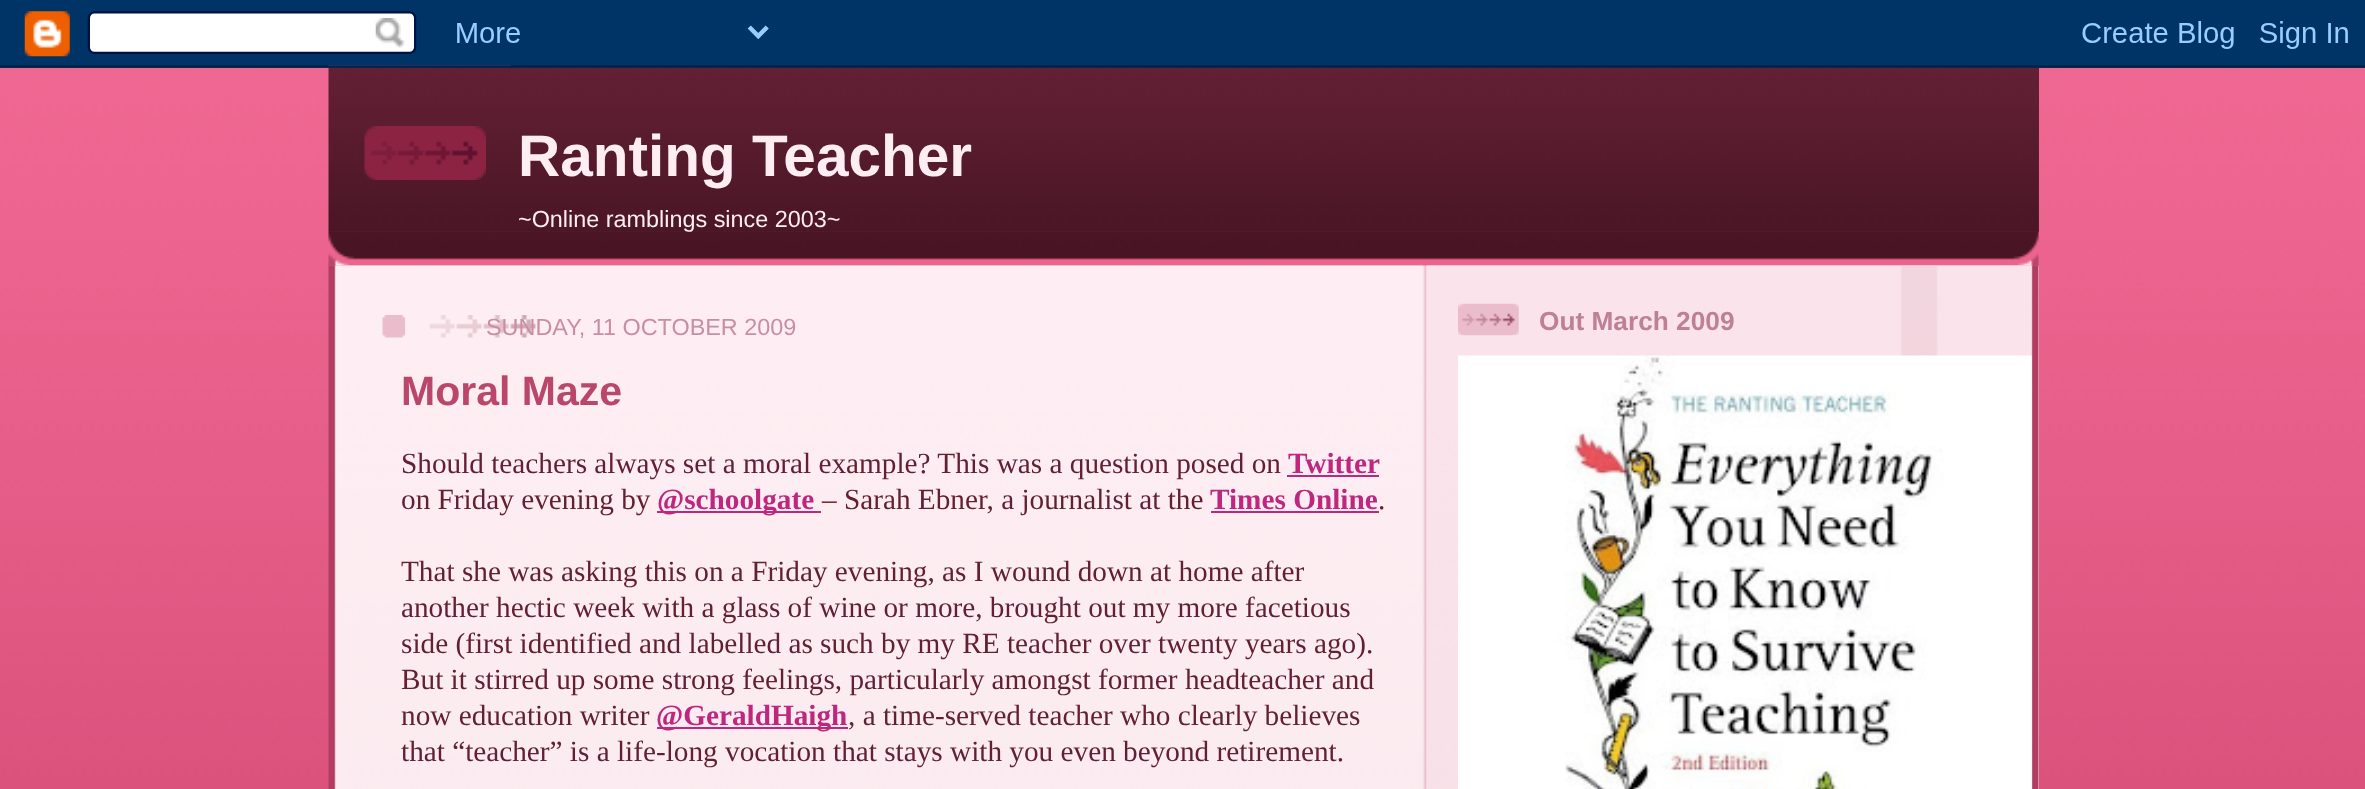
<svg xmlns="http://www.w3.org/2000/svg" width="2365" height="789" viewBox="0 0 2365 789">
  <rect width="100%" height="100%" fill="#ffffff"/>
  <image x="0" y="65" width="2365" height="724" href="img1.png"/>
  <image x="0" y="0" width="2365" height="68" href="img2.png"/>
  <image x="328" y="231" width="1711" height="35" href="img3.png"/>
  <rect x="329" y="68" width="1710" height="164" fill="#632035"/>
  <image x="328" y="68" width="1711" height="164" href="img4.png"/>
  <image x="364" y="126" width="122" height="54" href="img5.png"/>
  <text x="518" y="176" font-family="Liberation Sans" font-size="58.5" font-weight="bold" fill="#feeef3">Ranting Teacher</text>
  <text x="518" y="227" font-family="Liberation Sans" font-size="23.4" fill="#feeef3">~Online ramblings since 2003~</text>
  <rect x="2038" y="266" width="1" height="523" fill="#f7f0e9"/>
  <image x="328" y="265" width="1711" height="524" href="img6.png"/>
  <image x="335" y="265" width="1087" height="524" href="img7.png"/>
  <image x="382" y="315" width="23" height="23" href="img8.png"/>
  <image x="429" y="315" width="107" height="23" href="img9.png"/>
  <text x="486" y="335" font-family="Liberation Sans" font-size="23.4" fill="#c88fa2">SUNDAY, 11 OCTOBER 2009</text>
  <text x="401" y="405" font-family="Liberation Sans" font-size="41" font-weight="bold" fill="#ba476b">Moral Maze</text>
  <text x="401" y="473" font-family="Liberation Serif" font-size="29.25" fill="#632035">Should teachers always set a moral example? This was a question posed on</text>
  <rect x="1287" y="475" width="92" height="2" fill="#bf277e"/>
  <text x="1288" y="473" font-family="Liberation Serif" font-size="29.25" font-weight="bold" fill="#bf277e">Twitter</text>
  <text x="401" y="509" font-family="Liberation Serif" font-size="29.25" fill="#632035">on Friday evening by</text>
  <rect x="657" y="511" width="164" height="2" fill="#bf277e"/>
  <text x="657" y="509" font-family="Liberation Serif" font-size="29.25" font-weight="bold" fill="#bf277e">@schoolgate</text>
  <text x="822" y="509" font-family="Liberation Serif" font-size="29.25" fill="#632035">– Sarah Ebner, a journalist at the</text>
  <text x="1210" y="509" font-family="Liberation Serif" font-size="29.25" font-weight="bold" fill="#bf277e">Times Online</text>
  <text x="1378" y="509" font-family="Liberation Serif" font-size="29.25" fill="#632035">.</text>
  <rect x="1211" y="511" width="168" height="2" fill="#bf277e"/>
  <text x="401" y="581" font-family="Liberation Serif" font-size="29.25" fill="#632035">That she was asking this on a Friday evening, as I wound down at home after</text>
  <text x="401" y="617" font-family="Liberation Serif" font-size="29.25" fill="#632035">another hectic week with a glass of wine or more, brought out my more facetious</text>
  <text x="401" y="653" font-family="Liberation Serif" font-size="29.25" fill="#632035">side (first identified and labelled as such by my RE teacher over twenty years ago).</text>
  <text x="401" y="689" font-family="Liberation Serif" font-size="29.25" fill="#632035">But it stirred up some strong feelings, particularly amongst former headteacher and</text>
  <text x="401" y="725" font-family="Liberation Serif" font-size="29.25" fill="#632035">now education writer</text>
  <rect x="657" y="727" width="191" height="2" fill="#bf277e"/>
  <text x="656" y="725" font-family="Liberation Serif" font-size="29.25" font-weight="bold" fill="#bf277e">@GeraldHaigh</text>
  <text x="848" y="725" font-family="Liberation Serif" font-size="29.25" fill="#632035">, a time-served teacher who clearly believes</text>
  <text x="401" y="761" font-family="Liberation Serif" font-size="29.25" fill="#632035">that “teacher” is a life-long vocation that stays with you even beyond retirement.</text>
  <image x="1426" y="265" width="606" height="524" href="img10.png"/>
  <image x="1900" y="266" width="38" height="90" href="img11.png"/>
  <image x="1458" y="303" width="61" height="33" href="img12.png"/>
  <text x="1539" y="330" font-family="Liberation Sans" font-size="26.25" font-weight="bold" fill="#bd8095">Out March 2009</text>
  <image x="1458" y="355" width="574" height="434" href="img13.png"/>
</svg>
